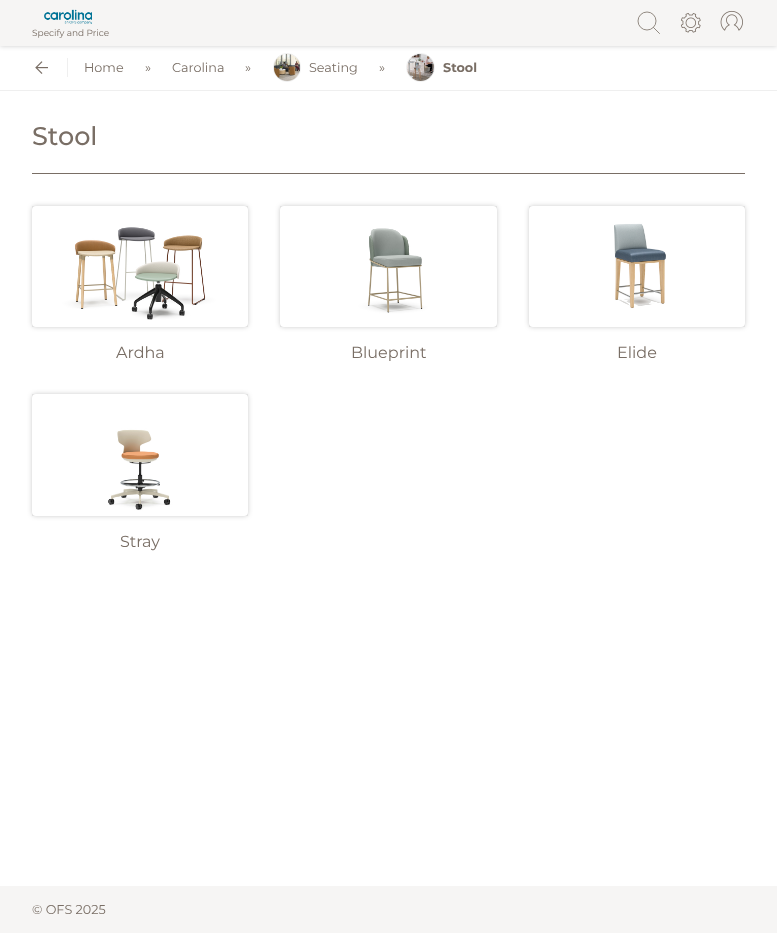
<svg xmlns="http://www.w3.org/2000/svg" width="777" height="933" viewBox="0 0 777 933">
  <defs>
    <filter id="blur1" x="-50%" y="-200%" width="200%" height="500%"><feGaussianBlur stdDeviation="2.5"/></filter>
  </defs>
  <rect width="100%" height="100%" fill="#ffffff"/>
  <rect x="273.5" y="53.5" width="27" height="28" rx="13.5" fill="none" stroke="#eeeeee"/>
  <image x="274" y="54" width="26" height="27" href="img5.png"/>
  <circle cx="420.5" cy="67.5" r="14" fill="none" stroke="#eeeeee"/>
  <image x="407" y="54" width="27" height="27" href="img6.png"/>
  <rect x="0" y="0" width="777" height="46" fill="#000000" fill-opacity="0.2" filter="url(#blur1)"/>
  <rect x="0" y="0" width="777" height="46" fill="#f6f5f4"/>
  <image x="44" y="9" width="49" height="15" href="img1.png"/>
  <text x="32" y="36" font-family="Montserrat" font-size="9" fill="#796e65">Specify and Price</text>
  <circle cx="647" cy="21" r="9" fill="none" stroke="#796e65" stroke-width="0.8"/>
  <path d="M653.5 27.5L659.5 33.5" fill="none" stroke="#796e65" stroke-width="0.8" stroke-linecap="round"/>
  <image x="681" y="13" width="20" height="20" href="img2.png"/>
  <image x="720" y="10" width="23" height="21" href="img3.png"/>
  <rect x="0" y="90" width="777" height="1" fill="#efefef"/>
  <rect x="67" y="58" width="1" height="19" fill="#efefef"/>
  <image x="35" y="61" width="13" height="13" href="img4.png"/>
  <text x="84" y="72" font-family="Montserrat" font-size="12.75" fill="#796e65">Home</text>
  <text x="145" y="72" font-family="Montserrat" font-size="12.75" fill="#796e65">»</text>
  <text x="172" y="72" font-family="Montserrat" font-size="12.75" fill="#796e65">Carolina</text>
  <text x="245" y="72" font-family="Montserrat" font-size="12.75" fill="#796e65">»</text>
  <text x="309" y="72" font-family="Montserrat" font-size="12.75" fill="#796e65">Seating</text>
  <text x="379" y="72" font-family="Montserrat" font-size="12.75" fill="#796e65">»</text>
  <text x="443" y="72" font-family="Montserrat" font-size="12.75" font-weight="bold" fill="#796e65">Stool</text>
  <rect x="32" y="173" width="713" height="1" fill="#796e65"/>
  <text x="32" y="145" font-family="Montserrat" font-size="25.5" font-weight="500" fill="#796e65">Stool</text>
  <rect x="32" y="206" width="216" height="121" fill="#eeeeee"/>
  <rect x="32" y="206" width="216" height="121" rx="4" fill="#000000" fill-opacity="0.2" filter="url(#blur1)"/>
  <image x="32" y="206" width="216" height="121" href="img7.png"/>
  <text x="116" y="358" font-family="Montserrat" font-size="16" fill="#796e65">Ardha</text>
  <rect x="280" y="206" width="217" height="121" fill="#eeeeee"/>
  <rect x="280" y="206" width="217" height="121" rx="4" fill="#000000" fill-opacity="0.2" filter="url(#blur1)"/>
  <image x="280" y="206" width="217" height="121" href="img8.png"/>
  <text x="351" y="358" font-family="Montserrat" font-size="16" fill="#796e65">Blueprint</text>
  <rect x="529" y="206" width="216" height="121" fill="#eeeeee"/>
  <rect x="529" y="206" width="216" height="121" rx="4" fill="#000000" fill-opacity="0.2" filter="url(#blur1)"/>
  <image x="529" y="206" width="216" height="121" href="img9.png"/>
  <text x="617" y="358" font-family="Montserrat" font-size="16" fill="#796e65">Elide</text>
  <rect x="32" y="394" width="216" height="122" fill="#eeeeee"/>
  <rect x="32" y="394" width="216" height="122" rx="4" fill="#000000" fill-opacity="0.2" filter="url(#blur1)"/>
  <image x="32" y="394" width="216" height="122" href="img10.png"/>
  <text x="120" y="547" font-family="Montserrat" font-size="16" fill="#796e65">Stray</text>
  <rect x="0" y="886" width="777" height="47" fill="#f6f5f4"/>
  <text x="32" y="914" font-family="Montserrat" font-size="12.75" fill="#796e65">© OFS 2025</text>
</svg>
